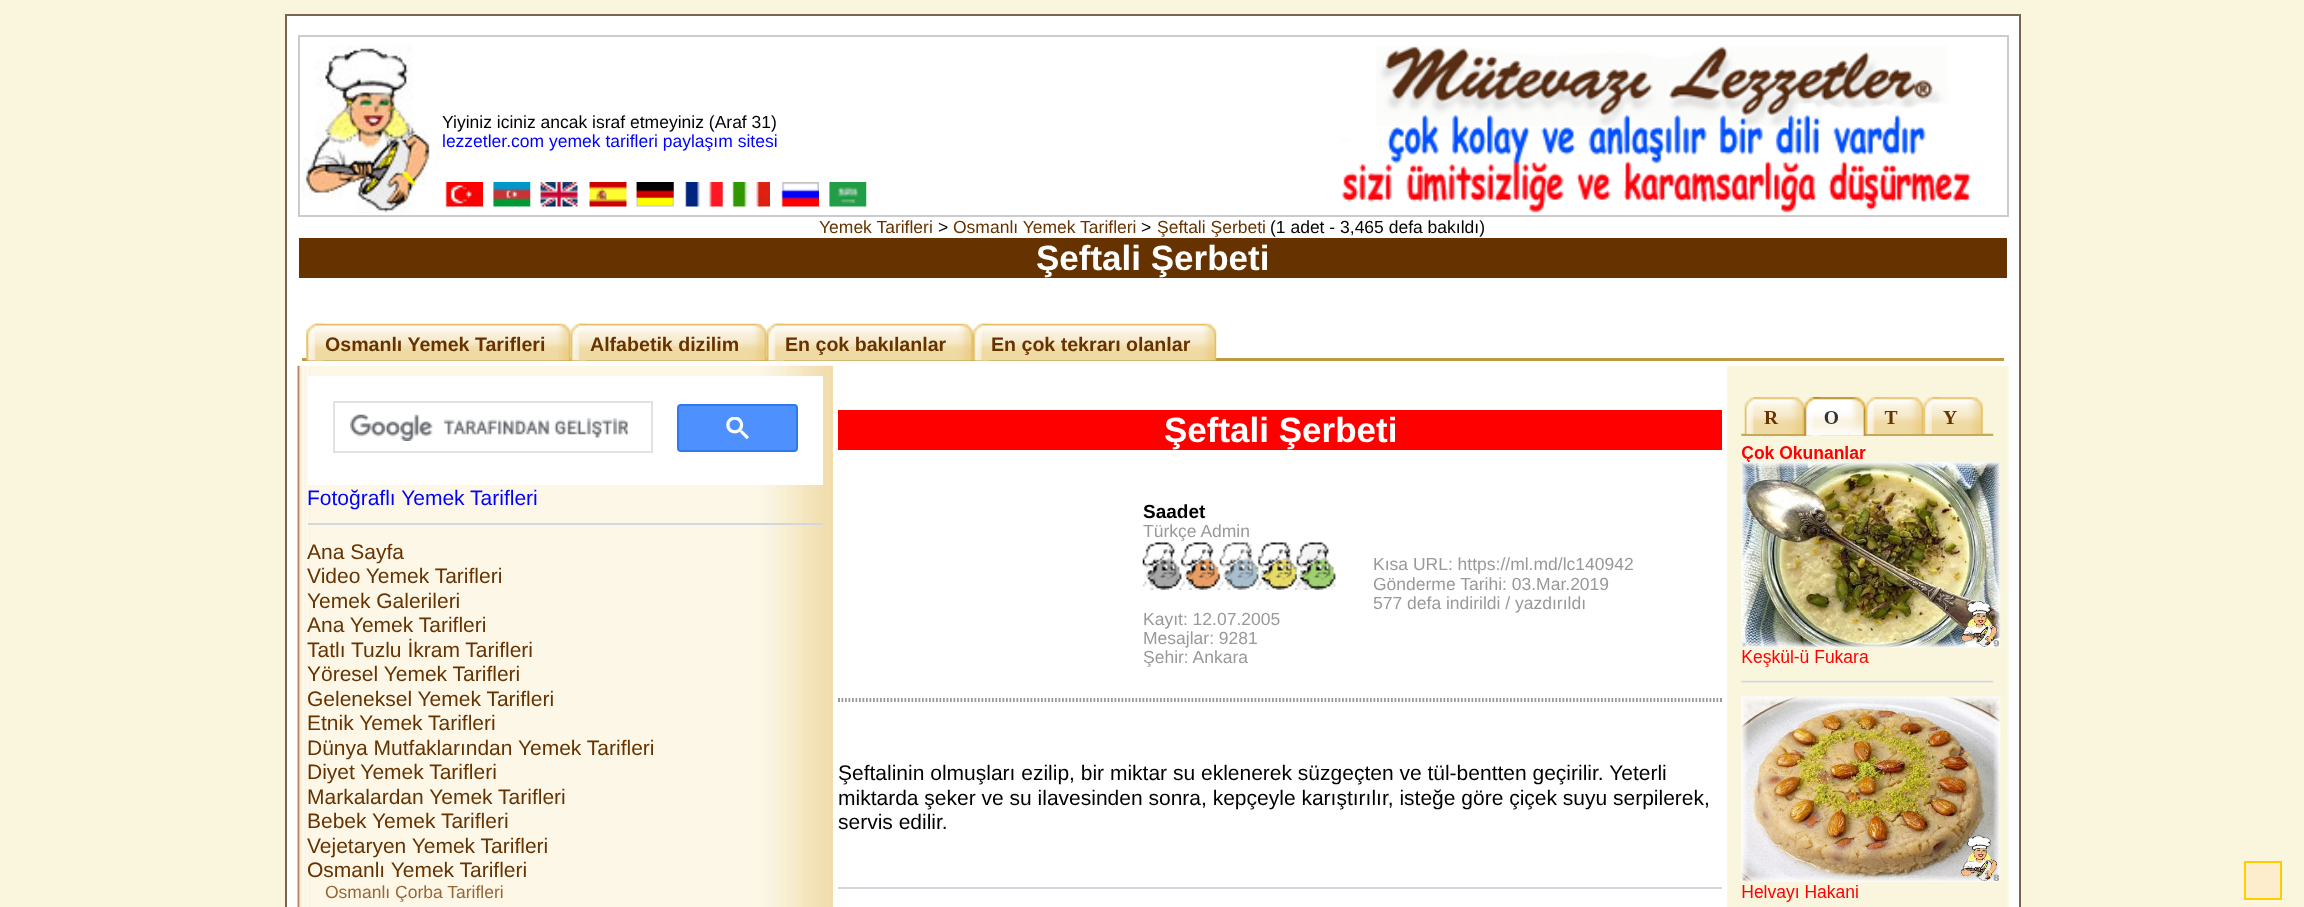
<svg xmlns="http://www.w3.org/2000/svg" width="2304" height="907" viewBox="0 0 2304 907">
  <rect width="100%" height="100%" fill="#faf6de"/>
  <rect x="286" y="15" width="1734" height="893" fill="#ffffff" stroke="#796554" stroke-width="2"/>
  <rect x="298" y="35" width="1711" height="2" fill="#cccccc"/>
  <rect x="2007" y="35" width="2" height="182" fill="#cccccc"/>
  <rect x="298" y="215" width="1711" height="2" fill="#cccccc"/>
  <rect x="298" y="35" width="2" height="182" fill="#cccccc"/>
  <image x="301" y="45" width="139" height="169" href="img1.png"/>
  <text x="442" y="128" font-family="Liberation Sans" font-size="17.5" fill="#000000">Yiyiniz iciniz ancak israf etmeyiniz (Araf 31)</text>
  <text x="442" y="147" font-family="Liberation Sans" font-size="17.5" fill="#0000ff">lezzetler.com yemek tarifleri paylaşım sitesi</text>
  <image x="445" y="182" width="38" height="25" href="img2.png"/>
  <image x="493" y="182" width="38" height="25" href="img3.png"/>
  <image x="540" y="182" width="38" height="25" href="img4.png"/>
  <image x="589" y="182" width="38" height="25" href="img5.png"/>
  <image x="636" y="182" width="38" height="25" href="img6.png"/>
  <image x="685" y="182" width="38" height="25" href="img7.png"/>
  <image x="732" y="182" width="38" height="25" href="img8.png"/>
  <image x="781" y="182" width="38" height="25" href="img9.png"/>
  <image x="829" y="182" width="38" height="25" href="img10.png"/>
  <image x="1341" y="46" width="630" height="167" href="img11.png"/>
  <text x="819" y="233" font-family="Liberation Sans" font-size="17.5" fill="#663300">Yemek Tarifleri</text>
  <text x="938" y="233" font-family="Liberation Sans" font-size="17.5" fill="#000000">&gt;</text>
  <text x="953" y="233" font-family="Liberation Sans" font-size="17.5" fill="#663300">Osmanlı Yemek Tarifleri</text>
  <text x="1141" y="233" font-family="Liberation Sans" font-size="17.5" fill="#000000">&gt;</text>
  <text x="1157" y="233" font-family="Liberation Sans" font-size="17.5" fill="#663300">Şeftali Şerbeti</text>
  <text x="1270" y="233" font-family="Liberation Sans" font-size="17.5" fill="#000000">(1 adet - 3,465 defa bakıldı)</text>
  <rect x="299" y="238" width="1708" height="40" fill="#663300"/>
  <text x="1036" y="270" font-family="Liberation Sans" font-size="35" font-weight="bold" fill="#ffffff">Şeftali Şerbeti</text>
  <rect x="302" y="358" width="1702" height="3" fill="#bd9a41"/>
  <image x="306" y="323" width="18" height="38" href="img12.png"/>
  <image x="315" y="323" width="256" height="38" href="img13.png"/>
  <text x="325" y="351" font-family="Liberation Sans" font-size="19.6" font-weight="bold" fill="#663300">Osmanlı Yemek Tarifleri</text>
  <image x="570" y="323" width="17" height="38" href="img14.png"/>
  <image x="579" y="323" width="188" height="38" href="img15.png"/>
  <text x="590" y="351" font-family="Liberation Sans" font-size="19.6" font-weight="bold" fill="#663300">Alfabetik dizilim</text>
  <image x="766" y="323" width="18" height="38" href="img16.png"/>
  <image x="775" y="323" width="198" height="38" href="img17.png"/>
  <text x="785" y="351" font-family="Liberation Sans" font-size="19.6" font-weight="bold" fill="#663300">En çok bakılanlar</text>
  <image x="973" y="323" width="16" height="38" href="img18.png"/>
  <image x="981" y="323" width="236" height="38" href="img19.png"/>
  <text x="991" y="351" font-family="Liberation Sans" font-size="19.6" font-weight="bold" fill="#663300">En çok tekrarı olanlar</text>
  <image x="297" y="365" width="536" height="542" href="img20.png"/>
  <rect x="308" y="376" width="515" height="109" fill="#ffffff"/>
  <rect x="334" y="402" width="318" height="50" fill="none" stroke="#dfe1e5" stroke-width="2"/>
  <image x="350" y="414" width="279" height="27" href="img21.png"/>
  <rect x="678" y="405" width="119" height="46" rx="3" fill="#4d90fe" stroke="#3079ed" stroke-width="2"/>
  <image x="726" y="417" width="23" height="22" href="img22.png"/>
  <text x="307" y="505" font-family="Liberation Sans" font-size="21" fill="#0000ff">Fotoğraflı Yemek Tarifleri</text>
  <rect x="308" y="523" width="515" height="2" fill="#d1d7dc"/>
  <text x="307" y="559" font-family="Liberation Sans" font-size="21" fill="#663300">Ana Sayfa</text>
  <text x="307" y="583" font-family="Liberation Sans" font-size="21" fill="#663300">Video Yemek Tarifleri</text>
  <text x="307" y="608" font-family="Liberation Sans" font-size="21" fill="#663300">Yemek Galerileri</text>
  <text x="307" y="632" font-family="Liberation Sans" font-size="21" fill="#663300">Ana Yemek Tarifleri</text>
  <text x="307" y="657" font-family="Liberation Sans" font-size="21" fill="#663300">Tatlı Tuzlu İkram Tarifleri</text>
  <text x="307" y="681" font-family="Liberation Sans" font-size="21" fill="#663300">Yöresel Yemek Tarifleri</text>
  <text x="307" y="706" font-family="Liberation Sans" font-size="21" fill="#663300">Geleneksel Yemek Tarifleri</text>
  <text x="307" y="730" font-family="Liberation Sans" font-size="21" fill="#663300">Etnik Yemek Tarifleri</text>
  <text x="307" y="755" font-family="Liberation Sans" font-size="21" fill="#663300">Dünya Mutfaklarından Yemek Tarifleri</text>
  <text x="307" y="779" font-family="Liberation Sans" font-size="21" fill="#663300">Diyet Yemek Tarifleri</text>
  <text x="307" y="804" font-family="Liberation Sans" font-size="21" fill="#663300">Markalardan Yemek Tarifleri</text>
  <text x="307" y="828" font-family="Liberation Sans" font-size="21" fill="#663300">Bebek Yemek Tarifleri</text>
  <text x="307" y="853" font-family="Liberation Sans" font-size="21" fill="#663300">Vejetaryen Yemek Tarifleri</text>
  <text x="307" y="877" font-family="Liberation Sans" font-size="21" fill="#663300">Osmanlı Yemek Tarifleri</text>
  <text x="325" y="898" font-family="Liberation Sans" font-size="17.5" fill="#996633">Osmanlı Çorba Tarifleri</text>
  <rect x="838" y="410" width="884" height="40" fill="#ff0000"/>
  <text x="1164" y="442" font-family="Liberation Sans" font-size="35" font-weight="bold" fill="#ffffff">Şeftali Şerbeti</text>
  <text x="1143" y="518" font-family="Liberation Sans" font-size="19" font-weight="bold" fill="#000000">Saadet</text>
  <text x="1143" y="537" font-family="Liberation Sans" font-size="17.5" fill="#999999">Türkçe Admin</text>
  <image x="1142" y="542" width="194" height="48" href="img23.png"/>
  <text x="1143" y="625" font-family="Liberation Sans" font-size="17.5" fill="#999999">Kayıt: 12.07.2005</text>
  <text x="1143" y="644" font-family="Liberation Sans" font-size="17.5" fill="#999999">Mesajlar: 9281</text>
  <text x="1143" y="663" font-family="Liberation Sans" font-size="17.5" fill="#999999">Şehir: Ankara</text>
  <text x="1373" y="570" font-family="Liberation Sans" font-size="17.5" fill="#999999">Kısa URL: https://ml.md/lc140942</text>
  <text x="1373" y="590" font-family="Liberation Sans" font-size="17.5" fill="#999999">Gönderme Tarihi: 03.Mar.2019</text>
  <text x="1373" y="609" font-family="Liberation Sans" font-size="17.5" fill="#999999">577 defa indirildi / yazdırıldı</text>
  <path d="M838 699H1722" fill="none" stroke="#999999" stroke-width="1.8" stroke-dasharray="1.75 1.75"/>
  <rect x="1720" y="698" width="2" height="4" fill="#999999"/>
  <path d="M838 701H1722" fill="none" stroke="#999999" stroke-width="1.8" stroke-dasharray="1.75 1.75"/>
  <rect x="838" y="698" width="2" height="4" fill="#999999"/>
  <text x="838" y="780" font-family="Liberation Sans" font-size="21" fill="#000000">Şeftalinin olmuşları ezilip, bir miktar su eklenerek süzgeçten ve tül-bentten geçirilir. Yeterli</text>
  <text x="838" y="805" font-family="Liberation Sans" font-size="21" fill="#000000">miktarda şeker ve su ilavesinden sonra, kepçeyle karıştırılır, isteğe göre çiçek suyu serpilerek,</text>
  <text x="838" y="829" font-family="Liberation Sans" font-size="21" fill="#000000">servis edilir.</text>
  <rect x="838" y="887" width="884" height="2" fill="#d1d7dc"/>
  <rect x="1727" y="366" width="282" height="541" fill="#fcf8e8"/>
  <image x="1727" y="366" width="280" height="541" href="img24.png"/>
  <rect x="2245" y="862" width="36" height="37" fill="#fdedcd" stroke="#ffcc00" stroke-width="2"/>
</svg>
